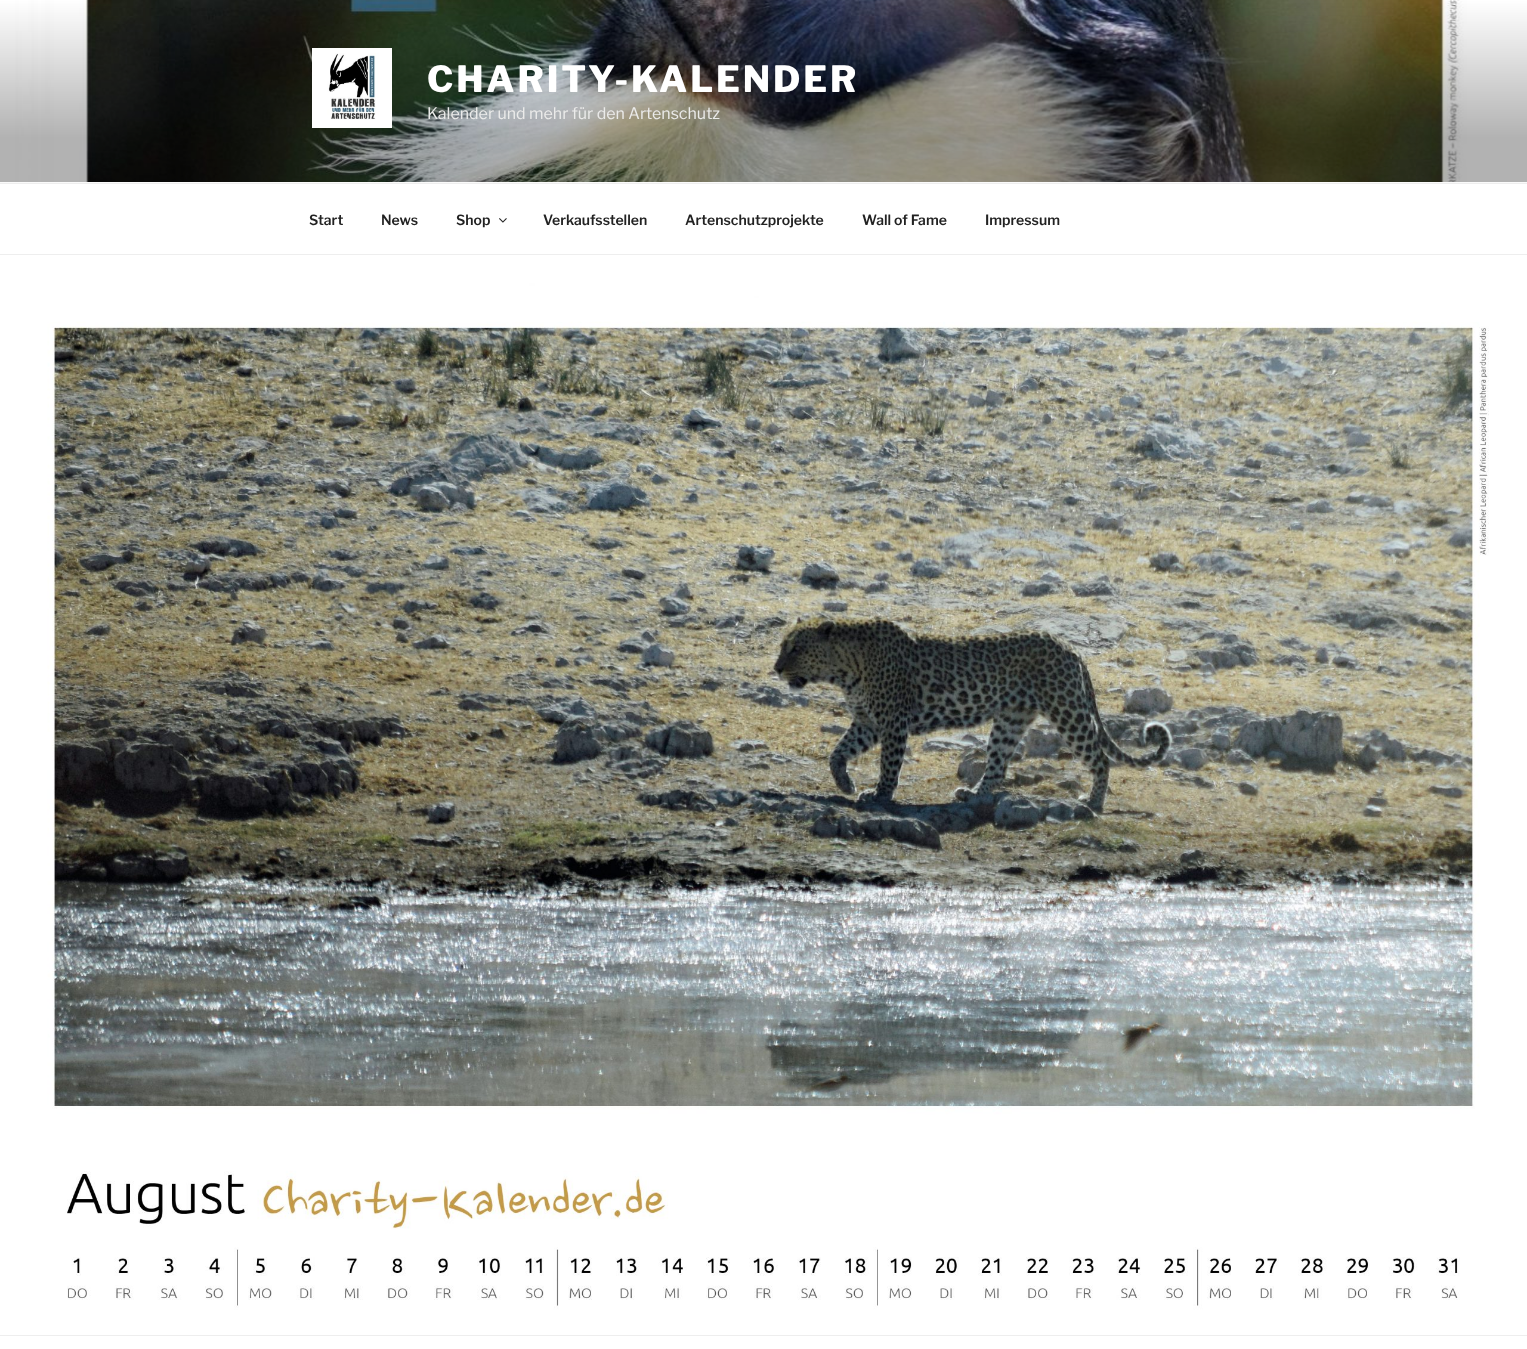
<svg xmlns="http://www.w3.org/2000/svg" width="1527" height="1349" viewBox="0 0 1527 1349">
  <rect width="100%" height="100%" fill="#ffffff"/>
  <rect x="0" y="182" width="1527" height="1" fill="#fafafa"/>
  <image x="0" y="0" width="1527" height="182" href="img1.png"/>
  <image x="312" y="48" width="80" height="80" href="img2.png"/>
  <text x="427" y="92" font-family="Libre Franklin" font-size="36" font-weight="100" letter-spacing="2.9" fill="#ffffff">CHARITY-KALENDER</text>
  <text x="427" y="119" font-family="'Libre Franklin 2'" font-size="16" font-weight="100" fill="#ebebea">Kalender und mehr für den Artenschutz</text>
  <rect x="0" y="183" width="1527" height="1" fill="#eeeeee"/>
  <rect x="0" y="254" width="1527" height="1" fill="#eeeeee"/>
  <text x="309" y="225" font-family="'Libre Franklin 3'" font-size="14" font-weight="100" fill="#222222">Start</text>
  <text x="381" y="225" font-family="'Libre Franklin 3'" font-size="14" font-weight="100" fill="#222222">News</text>
  <text x="456" y="225" font-family="'Libre Franklin 3'" font-size="14" font-weight="100" fill="#222222">Shop</text>
  <image x="499" y="218" width="8" height="5" href="img3.png"/>
  <text x="543" y="225" font-family="'Libre Franklin 3'" font-size="14" font-weight="100" fill="#222222">Verkaufsstellen</text>
  <text x="685" y="225" font-family="'Libre Franklin 3'" font-size="14" font-weight="100" fill="#222222">Artenschutzprojekte</text>
  <text x="862" y="225" font-family="'Libre Franklin 3'" font-size="14" font-weight="100" fill="#222222">Wall of Fame</text>
  <text x="985" y="225" font-family="'Libre Franklin 3'" font-size="14" font-weight="100" fill="#222222">Impressum</text>
  <rect x="0" y="1335" width="1527" height="1" fill="#eeeeee"/>
  <image x="0" y="255" width="1527" height="1080" href="img4.png"/>
</svg>
